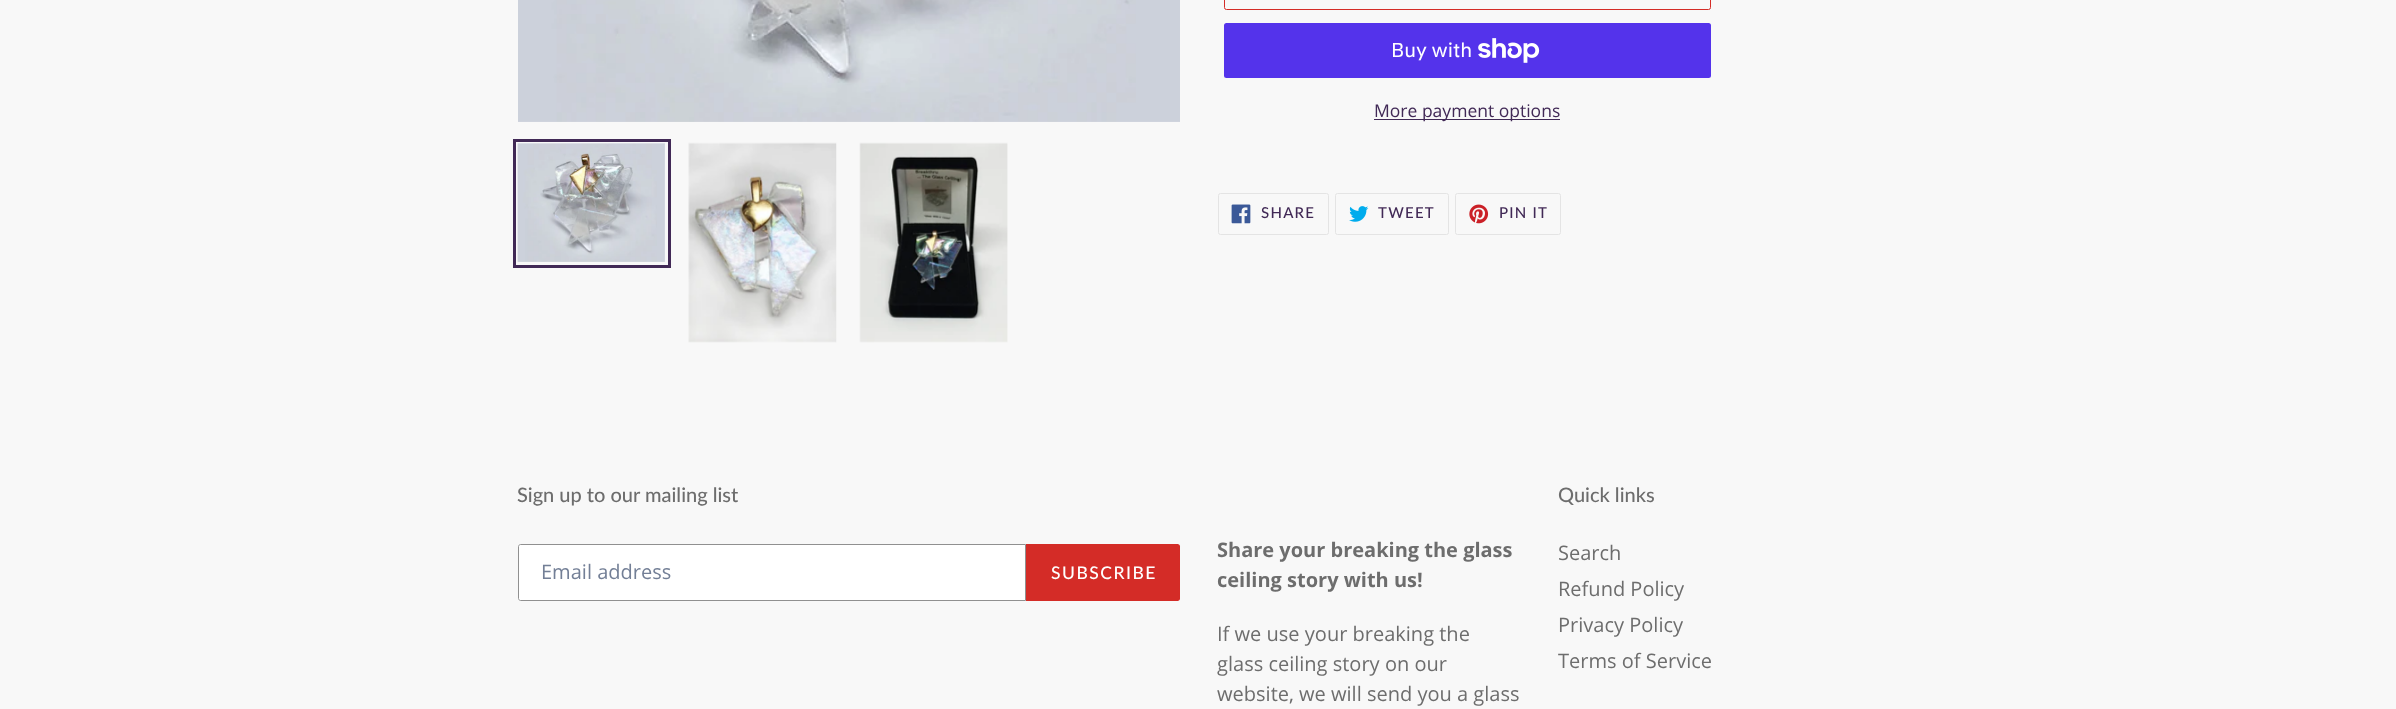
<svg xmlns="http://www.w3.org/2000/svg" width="2396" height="709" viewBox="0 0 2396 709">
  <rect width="100%" height="100%" fill="#f8f8f8"/>
  <image x="518" y="0" width="662" height="122" href="img1.png"/>
  <rect x="514.5" y="140.5" width="155" height="126" fill="none" stroke="#412956" stroke-width="3"/>
  <image x="517" y="143" width="148" height="119" href="img2.png"/>
  <image x="688" y="142" width="149" height="201" href="img3.png"/>
  <image x="859" y="142" width="149" height="201" href="img4.png"/>
  <rect x="1224.5" y="-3.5" width="486" height="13" rx="2" fill="none" stroke="#d42c27"/>
  <rect x="1224" y="23" width="487" height="55" rx="2.5" fill="#5433eb"/>
  <text x="1391" y="57" font-family="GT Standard" font-size="20" fill="#ffffff">Buy with</text>
  <image x="1478" y="38" width="62" height="25" href="img5.png"/>
  <rect x="1374" y="119" width="186" height="1" fill="#412956"/>
  <text x="1374" y="117" font-family="Open Sans" font-size="17.5" fill="#412956">More payment options</text>
  <rect x="1218.5" y="193.5" width="110" height="41" rx="2" fill="none" stroke="#e4e4e4"/>
  <image x="1231" y="204" width="20" height="20" href="img6.png"/>
  <text x="1261" y="218" font-family="Lato" font-size="15" font-weight="500" letter-spacing="1.25" fill="#412956">SHARE</text>
  <rect x="1335.5" y="193.5" width="113" height="41" rx="2" fill="none" stroke="#e4e4e4"/>
  <image x="1349" y="206" width="20" height="16" href="img7.png"/>
  <text x="1378" y="218" font-family="Lato" font-size="15" font-weight="500" letter-spacing="1.25" fill="#412956">TWEET</text>
  <rect x="1455.5" y="193.5" width="105" height="41" rx="2" fill="none" stroke="#e4e4e4"/>
  <image x="1469" y="204" width="20" height="20" href="img8.png"/>
  <text x="1499" y="218" font-family="Lato" font-size="15" font-weight="500" letter-spacing="1.25" fill="#412956">PIN IT</text>
  <text x="517" y="502" font-family="Lato" font-size="20" font-weight="500" fill="#6d6d6d">Sign up to our mailing list</text>
  <path d="M520.5 544.5H1025.5V600.5H520.5C519.5 600.5 518.5 599.5 518.5 598.5V546.5C518.5 545.5 519.5 544.5 520.5 544.5Z" fill="#ffffff" stroke="#909090"/>
  <text x="541" y="579" font-family="Open Sans" font-size="20" fill="#737f96">Email address</text>
  <path d="M1026 544H1177.5C1179 544 1180 545 1180 546.5V598.5C1180 600 1179 601 1177.5 601H1026Z" fill="#d42c27"/>
  <text x="1051" y="579" font-family="Lato" font-size="17.5" font-weight="500" letter-spacing="1.5" fill="#ffffff">SUBSCRIBE</text>
  <text x="1217" y="557" font-family="Open Sans" font-size="20" font-weight="bold" fill="#6d6d6d">Share your breaking the glass</text>
  <text x="1217" y="587" font-family="Open Sans" font-size="20" font-weight="bold" fill="#6d6d6d">ceiling story with us!</text>
  <text x="1217" y="641" font-family="Open Sans" font-size="20" fill="#6d6d6d">If we use your breaking the</text>
  <text x="1217" y="671" font-family="Open Sans" font-size="20" fill="#6d6d6d">glass ceiling story on our</text>
  <text x="1217" y="701" font-family="Open Sans" font-size="20" fill="#6d6d6d">website, we will send you a glass</text>
  <text x="1558" y="502" font-family="Lato" font-size="20" font-weight="500" fill="#6d6d6d">Quick links</text>
  <text x="1558" y="560" font-family="Open Sans" font-size="20" fill="#6d6d6d">Search</text>
  <text x="1558" y="596" font-family="Open Sans" font-size="20" fill="#6d6d6d">Refund Policy</text>
  <text x="1558" y="632" font-family="Open Sans" font-size="20" fill="#6d6d6d">Privacy Policy</text>
  <text x="1558" y="668" font-family="Open Sans" font-size="20" fill="#6d6d6d">Terms of Service</text>
</svg>
